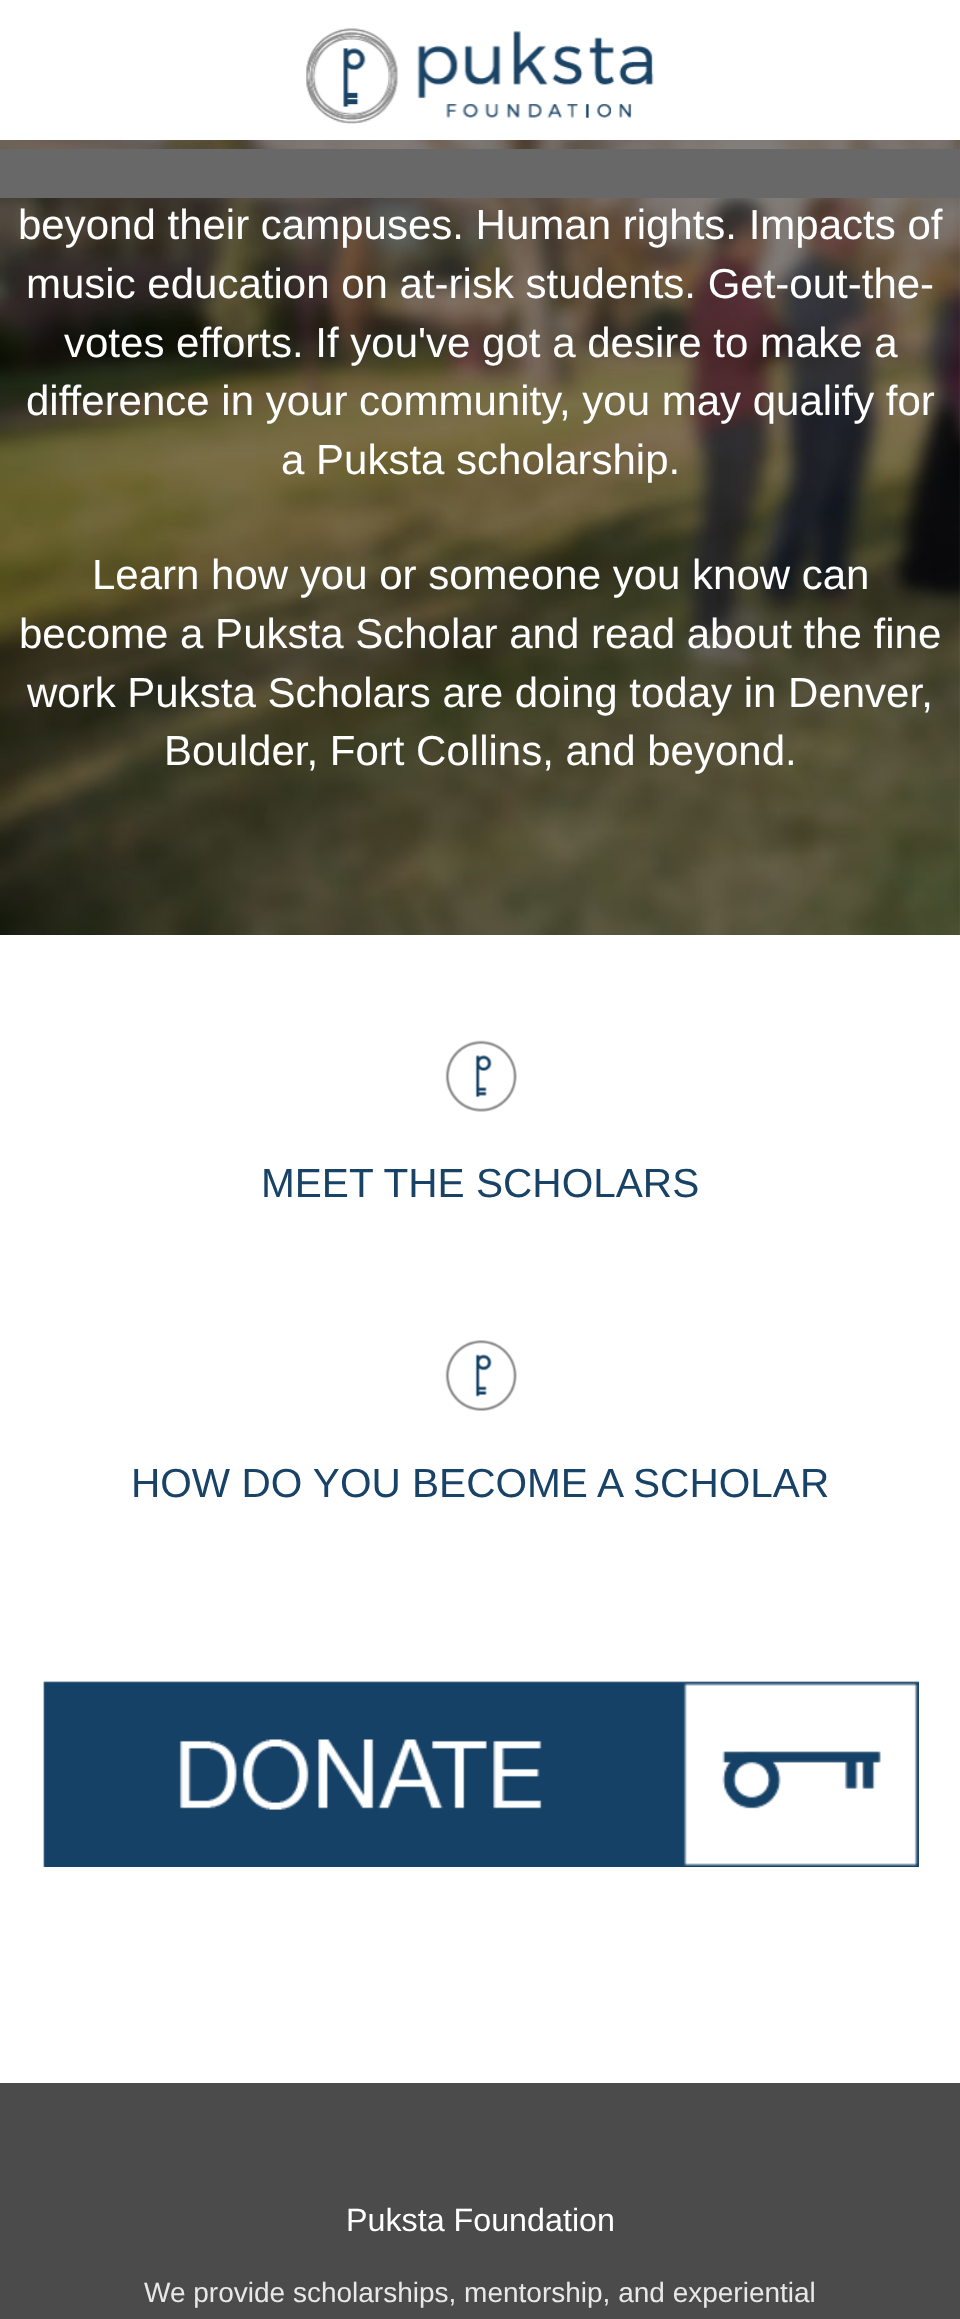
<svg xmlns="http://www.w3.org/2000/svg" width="960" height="2319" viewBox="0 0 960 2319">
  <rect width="100%" height="100%" fill="#ffffff"/>
  <image x="306" y="28" width="348" height="96" href="img1.png"/>
  <image x="0" y="140" width="960" height="795" href="img2.png"/>
  <rect x="0" y="149" width="960" height="49" fill="#686868"/>
  <text x="18" y="239" font-family="Liberation Sans" font-size="42" fill="#ffffff">beyond their campuses. Human rights. Impacts of</text>
  <text x="26" y="298" font-family="Liberation Sans" font-size="42" fill="#ffffff">music education on at-risk students. Get-out-the-</text>
  <text x="64" y="357" font-family="Liberation Sans" font-size="42" fill="#ffffff">votes efforts. If you've got a desire to make a</text>
  <text x="26" y="415" font-family="Liberation Sans" font-size="42" fill="#ffffff">difference in your community, you may qualify for</text>
  <text x="281" y="474" font-family="Liberation Sans" font-size="42" fill="#ffffff">a Puksta scholarship.</text>
  <text x="92" y="589" font-family="Liberation Sans" font-size="42" fill="#ffffff">Learn how you or someone you know can</text>
  <text x="19" y="648" font-family="Liberation Sans" font-size="42" fill="#ffffff">become a Puksta Scholar and read about the fine</text>
  <text x="27" y="707" font-family="Liberation Sans" font-size="42" fill="#ffffff">work Puksta Scholars are doing today in Denver,</text>
  <text x="164" y="765" font-family="Liberation Sans" font-size="42" fill="#ffffff">Boulder, Fort Collins, and beyond.</text>
  <image x="445" y="1040" width="72" height="72" href="img3.png"/>
  <text x="261" y="1197" font-family="Liberation Sans" font-size="40.6" fill="#184266">MEET THE SCHOLARS</text>
  <image x="445" y="1340" width="72" height="71" href="img4.png"/>
  <text x="131" y="1497" font-family="Liberation Sans" font-size="40.6" fill="#184266">HOW DO YOU BECOME A SCHOLAR</text>
  <image x="43" y="1681" width="876" height="186" href="img5.png"/>
  <rect x="0" y="2083" width="960" height="236" fill="#4b4b4b"/>
  <text x="346" y="2231" font-family="Liberation Sans" font-size="32.25" fill="#ffffff">Puksta Foundation</text>
  <text x="144" y="2302" font-family="Liberation Sans" font-size="28" fill="#e8e8e8">We provide scholarships, mentorship, and experiential</text>
</svg>
